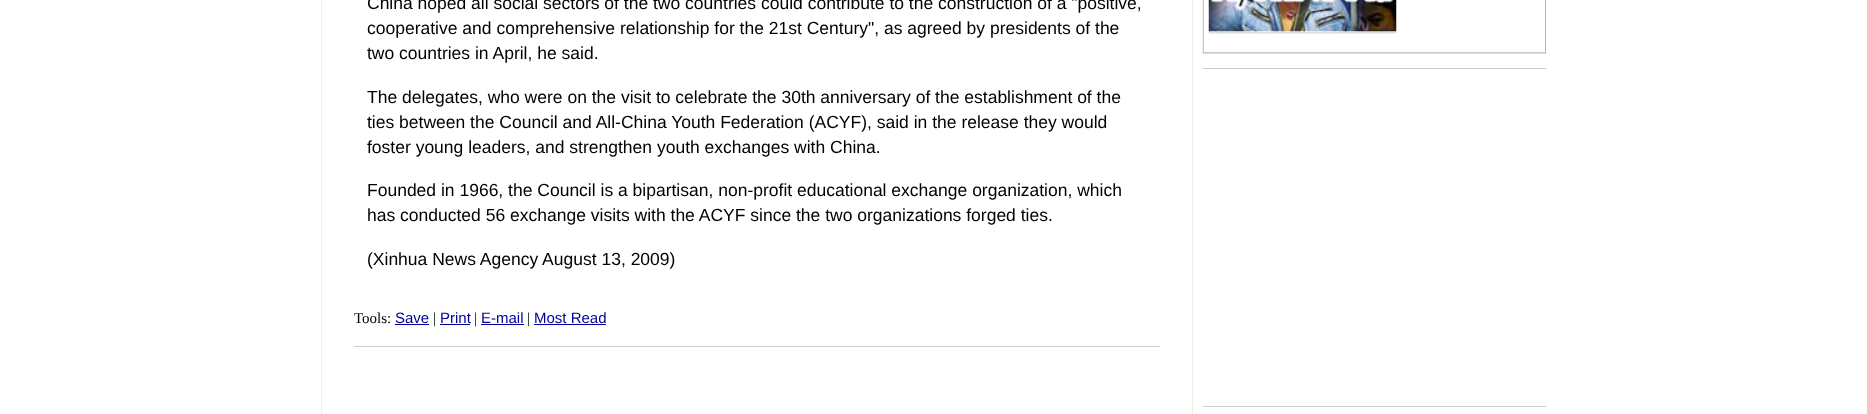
<svg xmlns="http://www.w3.org/2000/svg" width="1867" height="414" viewBox="0 0 1867 414">
  <rect width="100%" height="100%" fill="#ffffff"/>
  <rect x="321.5" y="-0.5" width="871" height="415" fill="none" stroke="#eeeee6"/>
  <text x="367" y="9" font-family="Liberation Sans" font-size="17.5" fill="#000000">China hoped all social sectors of the two countries could contribute to the construction of a "positive,</text>
  <text x="367" y="34" font-family="Liberation Sans" font-size="17.5" fill="#000000">cooperative and comprehensive relationship for the 21st Century", as agreed by presidents of the</text>
  <text x="367" y="59" font-family="Liberation Sans" font-size="17.5" fill="#000000">two countries in April, he said.</text>
  <text x="367" y="103" font-family="Liberation Sans" font-size="17.5" fill="#000000">The delegates, who were on the visit to celebrate the 30th anniversary of the establishment of the</text>
  <text x="367" y="128" font-family="Liberation Sans" font-size="17.5" fill="#000000">ties between the Council and All-China Youth Federation (ACYF), said in the release they would</text>
  <text x="367" y="153" font-family="Liberation Sans" font-size="17.5" fill="#000000">foster young leaders, and strengthen youth exchanges with China.</text>
  <text x="367" y="196" font-family="Liberation Sans" font-size="17.5" fill="#000000">Founded in 1966, the Council is a bipartisan, non-profit educational exchange organization, which</text>
  <text x="367" y="221" font-family="Liberation Sans" font-size="17.5" fill="#000000">has conducted 56 exchange visits with the ACYF since the two organizations forged ties.</text>
  <text x="367" y="265" font-family="Liberation Sans" font-size="17.5" fill="#000000">(Xinhua News Agency August 13, 2009)</text>
  <text x="354" y="323" font-family="Liberation Serif" font-size="15" fill="#000000">Tools:</text>
  <text x="395" y="323" font-family="Liberation Sans" font-size="15" fill="#000099">Save</text>
  <rect x="395" y="324" width="34" height="1" fill="#000099"/>
  <text x="433" y="323" font-family="Liberation Serif" font-size="15" fill="#000000">|</text>
  <text x="440" y="323" font-family="Liberation Sans" font-size="15" fill="#000099">Print</text>
  <rect x="440" y="324" width="30" height="1" fill="#000099"/>
  <text x="474" y="323" font-family="Liberation Serif" font-size="15" fill="#000000">|</text>
  <text x="481" y="323" font-family="Liberation Sans" font-size="15" fill="#000099">E-mail</text>
  <rect x="481" y="324" width="43" height="1" fill="#000099"/>
  <text x="527" y="323" font-family="Liberation Serif" font-size="15" fill="#000000">|</text>
  <text x="534" y="323" font-family="Liberation Sans" font-size="15" fill="#000099">Most Read</text>
  <rect x="534" y="324" width="72" height="1" fill="#000099"/>
  <rect x="354" y="346" width="806" height="1" fill="#cccccc"/>
  <image x="1202" y="0" width="345" height="54" href="img1.png"/>
  <rect x="1203" y="68" width="343" height="1" fill="#cccccc"/>
  <rect x="1203" y="406" width="343" height="1" fill="#cccccc"/>
</svg>
